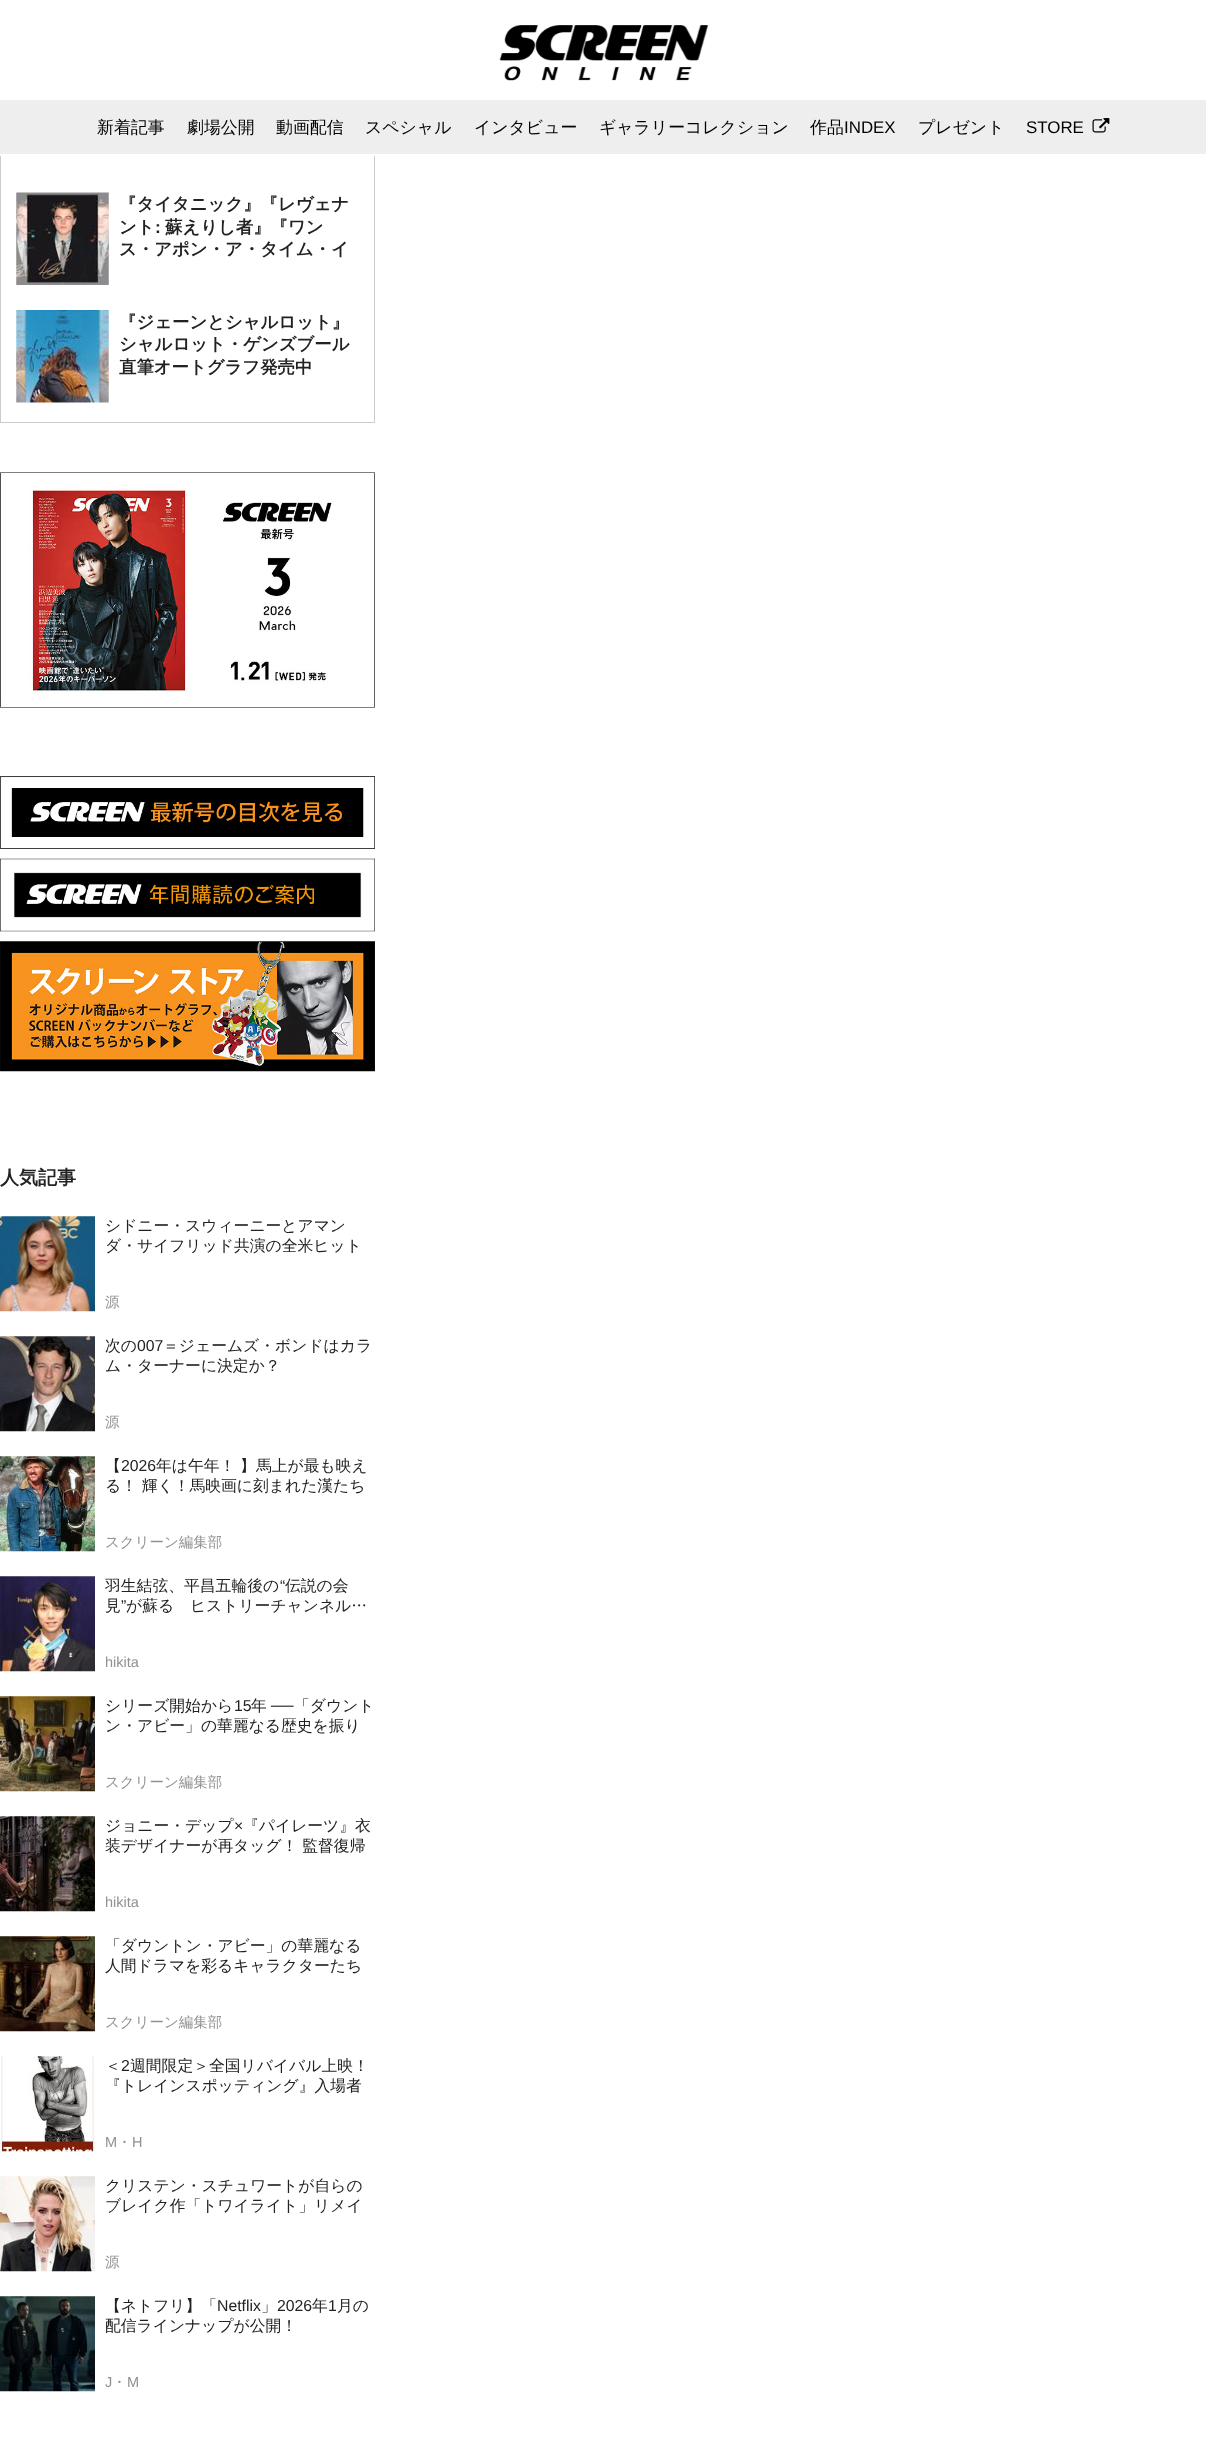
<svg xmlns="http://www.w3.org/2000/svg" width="1206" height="2437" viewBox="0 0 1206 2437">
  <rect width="100%" height="100%" fill="#ffffff"/>
  <image x="499" y="25" width="210" height="56" href="img1.png"/>
  <rect x="0.5" y="119.5" width="374" height="303" fill="none" stroke="#cccccc"/>
  <rect x="0" y="100" width="1206" height="54" fill="#eeeeee"/>
  <text x="97" y="133" font-family="WenQuanYi Zen Hei" font-size="16.9" font-weight="500" fill="#000000">新着記事</text>
  <text x="187" y="133" font-family="WenQuanYi Zen Hei" font-size="16.9" font-weight="500" fill="#000000">劇場公開</text>
  <text x="276" y="133" font-family="WenQuanYi Zen Hei" font-size="16.9" font-weight="500" fill="#000000">動画配信</text>
  <text x="365" y="133" font-family="WenQuanYi Zen Hei" font-size="16.9" font-weight="500" fill="#000000">スペシャル</text>
  <text x="474" y="133" font-family="WenQuanYi Zen Hei" font-size="16.9" font-weight="500" fill="#000000">インタビュー</text>
  <text x="599" y="133" font-family="WenQuanYi Zen Hei" font-size="16.9" font-weight="500" fill="#000000">ギャラリーコレクション</text>
  <text x="810" y="133" font-family="WenQuanYi Zen Hei" font-size="16.9" font-weight="500" fill="#000000">作品</text>
  <text x="844" y="133" font-family="Liberation Sans" font-size="16.9" fill="#000000">INDEX</text>
  <text x="918" y="133" font-family="WenQuanYi Zen Hei" font-size="16.9" font-weight="500" fill="#000000">プレゼント</text>
  <text x="1026" y="133" font-family="Liberation Sans" font-size="16.9" fill="#000000">STORE</text>
  <image x="1092" y="118" width="18" height="15" href="img2.png"/>
  <rect x="0" y="154" width="375" height="2" fill="#ffffff"/>
  <image x="16" y="192" width="93" height="93" href="img3.png"/>
  <text x="119" y="210" font-family="WenQuanYi Zen Hei" font-size="17.4" font-weight="bold" fill="#222222">『タイタニック』『レヴェナ</text>
  <text x="119" y="233" font-family="WenQuanYi Zen Hei" font-size="17.4" font-weight="bold" fill="#222222">ント</text>
  <text x="155" y="233" font-family="Liberation Sans" font-size="17.4" font-weight="bold" fill="#222222">:</text>
  <text x="165" y="233" font-family="WenQuanYi Zen Hei" font-size="17.4" font-weight="bold" fill="#222222">蘇えりし者』『ワン</text>
  <text x="119" y="255" font-family="WenQuanYi Zen Hei" font-size="17.4" font-weight="bold" fill="#222222">ス・アポン・ア・タイム・イ</text>
  <image x="16" y="310" width="93" height="93" href="img4.png"/>
  <text x="119" y="328" font-family="WenQuanYi Zen Hei" font-size="17.4" font-weight="bold" fill="#222222">『ジェーンとシャルロット』</text>
  <text x="119" y="350" font-family="WenQuanYi Zen Hei" font-size="17.4" font-weight="bold" fill="#222222">シャルロット・ゲンズブール</text>
  <text x="119" y="373" font-family="WenQuanYi Zen Hei" font-size="17.4" font-weight="bold" fill="#222222">直筆オートグラフ発売中</text>
  <image x="0" y="472" width="375" height="236" href="img5.png"/>
  <image x="0" y="776" width="375" height="73" href="img6.png"/>
  <image x="0" y="858" width="375" height="74" href="img7.png"/>
  <image x="0" y="941" width="375" height="131" href="img8.png"/>
  <text x="0" y="1184" font-family="WenQuanYi Zen Hei" font-size="19" font-weight="bold" fill="#222222">人気記事</text>
  <image x="0" y="1216" width="95" height="96" href="img9.png"/>
  <text x="105" y="1231" font-family="WenQuanYi Zen Hei" font-size="15.8" font-weight="500" fill="#222222">シドニー・スウィーニーとアマン</text>
  <text x="105" y="1251" font-family="WenQuanYi Zen Hei" font-size="15.8" font-weight="500" fill="#222222">ダ・サイフリッド共演の全米ヒット</text>
  <text x="105" y="1307" font-family="WenQuanYi Zen Hei" font-size="14.5" font-weight="500" fill="#919191">源</text>
  <image x="0" y="1336" width="95" height="96" href="img10.png"/>
  <text x="105" y="1351" font-family="WenQuanYi Zen Hei" font-size="15.8" font-weight="500" fill="#222222">次の</text>
  <text x="137" y="1351" font-family="Liberation Sans" font-size="15.8" fill="#222222">007</text>
  <text x="163" y="1351" font-family="WenQuanYi Zen Hei" font-size="15.8" font-weight="500" fill="#222222">＝ジェームズ・ボンドはカラ</text>
  <text x="105" y="1371" font-family="WenQuanYi Zen Hei" font-size="15.8" font-weight="500" fill="#222222">ム・ターナーに決定か？</text>
  <text x="105" y="1427" font-family="WenQuanYi Zen Hei" font-size="14.5" font-weight="500" fill="#919191">源</text>
  <image x="0" y="1456" width="95" height="96" href="img11.png"/>
  <text x="105" y="1471" font-family="WenQuanYi Zen Hei" font-size="15.8" font-weight="500" fill="#222222">【</text>
  <text x="121" y="1471" font-family="Liberation Sans" font-size="15.8" fill="#222222">2026</text>
  <text x="156" y="1471" font-family="WenQuanYi Zen Hei" font-size="15.8" font-weight="500" fill="#222222">年は午年！ 】馬上が最も映え</text>
  <text x="105" y="1491" font-family="WenQuanYi Zen Hei" font-size="15.8" font-weight="500" fill="#222222">る！ 輝く！馬映画に刻まれた漢たち</text>
  <text x="105" y="1547" font-family="WenQuanYi Zen Hei" font-size="14.5" font-weight="500" fill="#919191">スクリーン編集部</text>
  <image x="0" y="1576" width="95" height="96" href="img12.png"/>
  <text x="105" y="1591" font-family="WenQuanYi Zen Hei" font-size="15.8" font-weight="500" fill="#222222">羽生結弦、平昌五輪後の</text>
  <text x="280" y="1591" font-family="Liberation Sans" font-size="15.8" fill="#222222">“</text>
  <text x="285" y="1591" font-family="WenQuanYi Zen Hei" font-size="15.8" font-weight="500" fill="#222222">伝説の会</text>
  <text x="105" y="1611" font-family="WenQuanYi Zen Hei" font-size="15.8" font-weight="500" fill="#222222">見</text>
  <text x="121" y="1611" font-family="Liberation Sans" font-size="15.8" fill="#222222">”</text>
  <text x="126" y="1611" font-family="WenQuanYi Zen Hei" font-size="15.8" font-weight="500" fill="#222222">が蘇る　ヒストリーチャンネル…</text>
  <text x="105" y="1667" font-family="Liberation Sans" font-size="14.5" fill="#919191">hikita</text>
  <image x="0" y="1696" width="95" height="96" href="img13.png"/>
  <text x="105" y="1711" font-family="WenQuanYi Zen Hei" font-size="15.8" font-weight="500" fill="#222222">シリーズ開始から</text>
  <text x="234" y="1711" font-family="Liberation Sans" font-size="15.8" fill="#222222">15</text>
  <text x="251" y="1711" font-family="WenQuanYi Zen Hei" font-size="15.8" font-weight="500" fill="#222222">年</text>
  <text x="271" y="1711" font-family="Liberation Sans" font-size="15.8" fill="#222222">──</text>
  <text x="294" y="1711" font-family="WenQuanYi Zen Hei" font-size="15.8" font-weight="500" fill="#222222">「ダウント</text>
  <text x="105" y="1731" font-family="WenQuanYi Zen Hei" font-size="15.8" font-weight="500" fill="#222222">ン・アビー」の華麗なる歴史を振り</text>
  <text x="105" y="1787" font-family="WenQuanYi Zen Hei" font-size="14.5" font-weight="500" fill="#919191">スクリーン編集部</text>
  <image x="0" y="1816" width="95" height="96" href="img14.png"/>
  <text x="105" y="1831" font-family="WenQuanYi Zen Hei" font-size="15.8" font-weight="500" fill="#222222">ジョニー・デップ</text>
  <text x="234" y="1831" font-family="Liberation Sans" font-size="15.8" fill="#222222">×</text>
  <text x="243" y="1831" font-family="WenQuanYi Zen Hei" font-size="15.8" font-weight="500" fill="#222222">『パイレーツ』衣</text>
  <text x="105" y="1851" font-family="WenQuanYi Zen Hei" font-size="15.8" font-weight="500" fill="#222222">装デザイナーが再タッグ！ 監督復帰</text>
  <text x="105" y="1907" font-family="Liberation Sans" font-size="14.5" fill="#919191">hikita</text>
  <image x="0" y="1936" width="95" height="96" href="img15.png"/>
  <text x="105" y="1951" font-family="WenQuanYi Zen Hei" font-size="15.8" font-weight="500" fill="#222222">「ダウントン・アビー」の華麗なる</text>
  <text x="105" y="1971" font-family="WenQuanYi Zen Hei" font-size="15.8" font-weight="500" fill="#222222">人間ドラマを彩るキャラクターたち</text>
  <text x="105" y="2027" font-family="WenQuanYi Zen Hei" font-size="14.5" font-weight="500" fill="#919191">スクリーン編集部</text>
  <image x="0" y="2056" width="95" height="96" href="img16.png"/>
  <text x="105" y="2071" font-family="WenQuanYi Zen Hei" font-size="15.8" font-weight="500" fill="#222222">＜</text>
  <text x="121" y="2071" font-family="Liberation Sans" font-size="15.8" fill="#222222">2</text>
  <text x="130" y="2071" font-family="WenQuanYi Zen Hei" font-size="15.8" font-weight="500" fill="#222222">週間限定＞全国リバイバル上映！</text>
  <text x="105" y="2091" font-family="WenQuanYi Zen Hei" font-size="15.8" font-weight="500" fill="#222222">『トレインスポッティング』入場者</text>
  <text x="105" y="2147" font-family="Liberation Sans" font-size="14.5" fill="#919191">M</text>
  <text x="117" y="2147" font-family="WenQuanYi Zen Hei" font-size="14.5" font-weight="500" fill="#919191">・</text>
  <text x="132" y="2147" font-family="Liberation Sans" font-size="14.5" fill="#919191">H</text>
  <image x="0" y="2176" width="95" height="96" href="img17.png"/>
  <text x="105" y="2191" font-family="WenQuanYi Zen Hei" font-size="15.8" font-weight="500" fill="#222222">クリステン・スチュワートが自らの</text>
  <text x="105" y="2211" font-family="WenQuanYi Zen Hei" font-size="15.8" font-weight="500" fill="#222222">ブレイク作「トワイライト」リメイ</text>
  <text x="105" y="2267" font-family="WenQuanYi Zen Hei" font-size="14.5" font-weight="500" fill="#919191">源</text>
  <image x="0" y="2296" width="95" height="96" href="img18.png"/>
  <text x="105" y="2311" font-family="WenQuanYi Zen Hei" font-size="15.8" font-weight="500" fill="#222222">【ネトフリ】「</text>
  <text x="217" y="2311" font-family="Liberation Sans" font-size="15.8" fill="#222222">Netflix</text>
  <text x="261" y="2311" font-family="WenQuanYi Zen Hei" font-size="15.8" font-weight="500" fill="#222222">」</text>
  <text x="277" y="2311" font-family="Liberation Sans" font-size="15.8" fill="#222222">2026</text>
  <text x="312" y="2311" font-family="WenQuanYi Zen Hei" font-size="15.8" font-weight="500" fill="#222222">年</text>
  <text x="328" y="2311" font-family="Liberation Sans" font-size="15.8" fill="#222222">1</text>
  <text x="337" y="2311" font-family="WenQuanYi Zen Hei" font-size="15.8" font-weight="500" fill="#222222">月の</text>
  <text x="105" y="2331" font-family="WenQuanYi Zen Hei" font-size="15.8" font-weight="500" fill="#222222">配信ラインナップが公開！</text>
  <text x="105" y="2387" font-family="Liberation Sans" font-size="14.5" fill="#919191">J</text>
  <text x="112" y="2387" font-family="WenQuanYi Zen Hei" font-size="14.5" font-weight="500" fill="#919191">・</text>
  <text x="127" y="2387" font-family="Liberation Sans" font-size="14.5" fill="#919191">M</text>
</svg>
